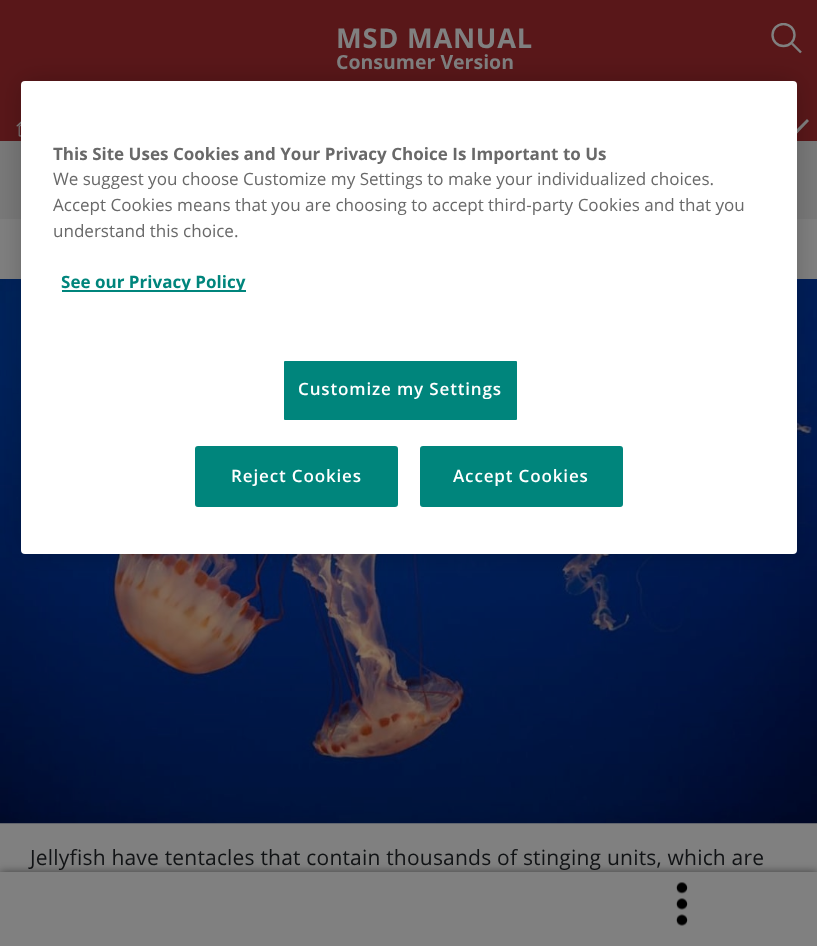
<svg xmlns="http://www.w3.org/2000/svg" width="817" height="946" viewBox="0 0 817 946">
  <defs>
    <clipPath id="clip1"><rect x="771" y="23" width="32" height="31"/></clipPath>
    <filter id="blur1" x="-50%" y="-200%" width="200%" height="500%"><feGaussianBlur stdDeviation="4"/></filter>
    <filter id="blur2" x="-50%" y="-200%" width="200%" height="500%"><feGaussianBlur stdDeviation="13.5"/></filter>
  </defs>
  <rect width="100%" height="100%" fill="#797979"/>
  <rect x="0" y="0" width="817" height="141" fill="#591719"/>
  <text x="336" y="48" font-family="Open Sans" font-size="27.25" font-weight="bold" letter-spacing="0.75" fill="#808080">MSD MANUAL</text>
  <text x="336" y="69" font-family="Open Sans" font-size="19.5" font-weight="bold" fill="#808080">Consumer Version</text>
  <g clip-path="url(#clip1)">
    <circle cx="783.5" cy="35" r="11" fill="none" stroke="#808080" stroke-width="2.4"/>
  </g>
  <path d="M801 52.5L792 43.5" fill="none" stroke="#808080" stroke-width="2.4"/>
  <image x="16" y="121" width="5" height="16" href="img1.png"/>
  <path d="M807 119L809 121L796.5 134L794.5 131.5Z" fill="#808080"/>
  <path d="M786 119L798.5 131.5L796.5 134L783.5 121Z" fill="#808080"/>
  <rect x="0" y="219" width="817" height="653" fill="#808080"/>
  <image x="0" y="279" width="817" height="545" href="img2.png"/>
  <text x="30" y="865" font-family="Open Sans" font-size="21" letter-spacing="0.2" fill="#111315">Jellyfish have tentacles that contain thousands of stinging units, which are</text>
  <rect x="0" y="872" width="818" height="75" fill="#000000" fill-opacity="0.5" filter="url(#blur1)"/>
  <rect x="0" y="872" width="817" height="74" fill="#808080"/>
  <image x="676" y="882" width="12" height="44" href="img3.png"/>
  <rect x="21" y="81" width="776" height="473" rx="4" fill="#000000" fill-opacity="0.2" filter="url(#blur2)"/>
  <rect x="21" y="81" width="776" height="473" rx="4" fill="#ffffff"/>
  <text x="53" y="160" font-family="Open Sans" font-size="17.05" font-weight="bold" fill="#696969">This Site Uses Cookies and Your Privacy Choice Is Important to Us</text>
  <text x="53" y="185" font-family="Open Sans" font-size="17.05" fill="#696969">We suggest you choose Customize my Settings to make your individualized choices.</text>
  <text x="53" y="211" font-family="Open Sans" font-size="17.05" fill="#696969">Accept Cookies means that you are choosing to accept third-party Cookies and that you</text>
  <text x="53" y="237" font-family="Open Sans" font-size="17.05" fill="#696969">understand this choice.</text>
  <rect x="62" y="290" width="184" height="2" fill="#00857c"/>
  <text x="61" y="288" font-family="Open Sans" font-size="17.05" font-weight="bold" fill="#00857c">See our Privacy Policy</text>
  <rect x="283" y="360" width="235" height="61" rx="2" fill="#00857c" stroke="#ffffff" stroke-width="2"/>
  <text x="298" y="395" font-family="Open Sans" font-size="17.05" font-weight="600" letter-spacing="0.85" fill="#ffffff">Customize my Settings</text>
  <rect x="196" y="447" width="201" height="59" rx="2" fill="#00857c" stroke="#00857c" stroke-width="2"/>
  <text x="231" y="482" font-family="Open Sans" font-size="17.05" font-weight="600" letter-spacing="0.85" fill="#ffffff">Reject Cookies</text>
  <rect x="421" y="447" width="201" height="59" rx="2" fill="#00857c" stroke="#00857c" stroke-width="2"/>
  <text x="453" y="482" font-family="Open Sans" font-size="17.05" font-weight="600" letter-spacing="0.85" fill="#ffffff">Accept Cookies</text>
</svg>
